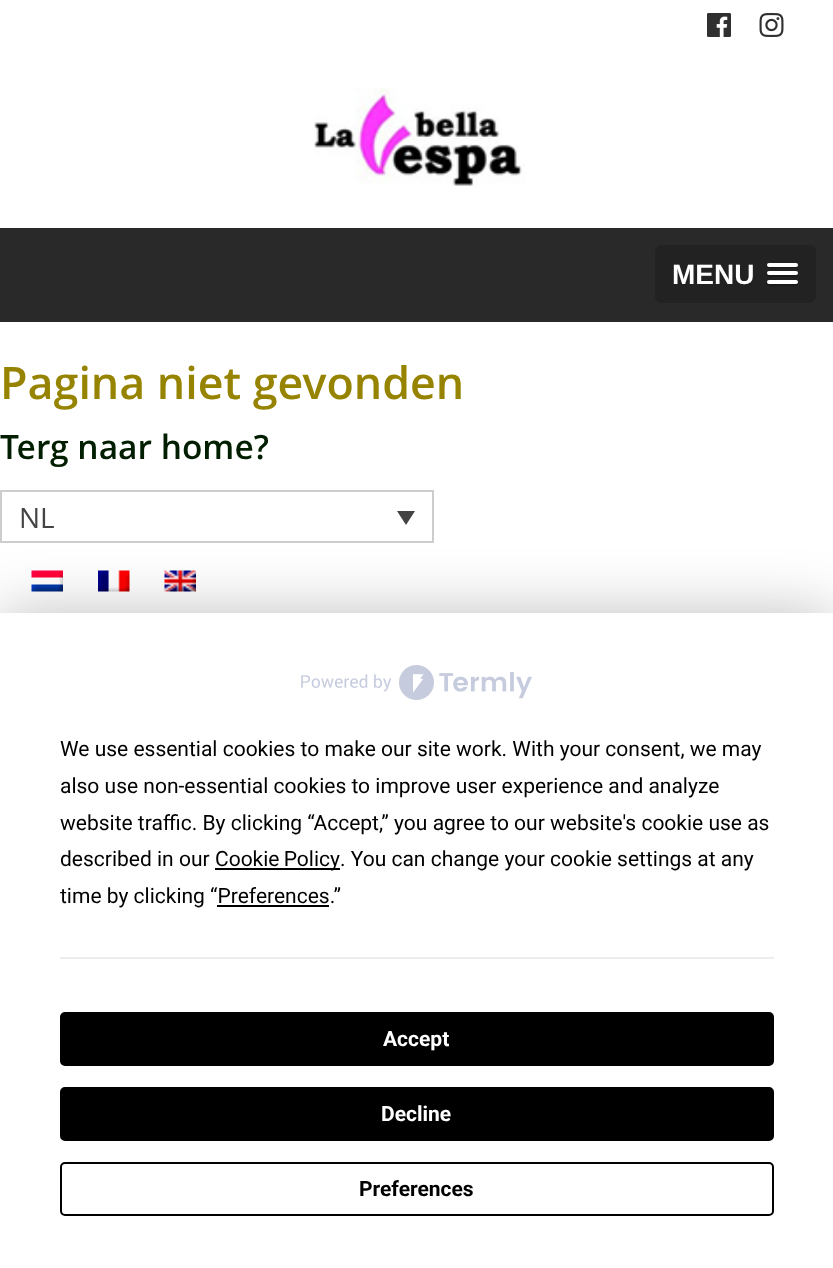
<svg xmlns="http://www.w3.org/2000/svg" width="833" height="1268" viewBox="0 0 833 1268">
  <defs>
    <filter id="blur1" x="-50%" y="-200%" width="200%" height="500%"><feGaussianBlur stdDeviation="30.5"/></filter>
  </defs>
  <rect width="100%" height="100%" fill="#ffffff"/>
  <image x="707" y="13" width="24" height="24" href="img1.png"/>
  <image x="759" y="13" width="25" height="24" href="img2.png"/>
  <image x="314" y="87" width="211" height="99" href="img3.png"/>
  <rect x="0" y="228" width="833" height="94" fill="#292929"/>
  <rect x="655" y="245" width="161" height="58" rx="7" fill="#222222"/>
  <text x="672" y="284" font-family="Liberation Sans" font-size="28" font-weight="bold" fill="#ffffff">MENU</text>
  <path d="M767 265.5C766 269 772.5 268 773.5 268H791.5C792.5 268 799.5 269 798 265L796.5 266H768Z" fill="#1a1a1a"/>
  <rect x="767" y="263" width="31" height="4" rx="2" fill="#ffffff"/>
  <path d="M767 274.5C766 278 772.5 277 773.5 277H791.5C792 277 800 278 797.5 274L796.5 274.5H768Z" fill="#1a1a1a"/>
  <rect x="767" y="271" width="31" height="4" rx="2" fill="#ffffff"/>
  <path d="M767 283C765.5 287 772.5 286 773.5 286H791.5C792.5 286 797.5 287 798 284.5L797.5 283L796.5 283.5C794 284 768 284 767 283Z" fill="#1a1a1a"/>
  <rect x="767" y="280" width="31" height="4" rx="2" fill="#ffffff"/>
  <text x="0" y="399" font-family="Open Sans" font-size="44.75" font-weight="600" fill="#968400">Pagina niet gevonden</text>
  <text x="0" y="459" font-family="Open Sans" font-size="33.5" font-weight="600" fill="#011f00">Terg naar home?</text>
  <rect x="1" y="491" width="432" height="51" fill="none" stroke="#cdcdcd" stroke-width="2"/>
  <text x="19" y="528" font-family="Open Sans" font-size="28" fill="#444444">NL</text>
  <path d="M397 511H415L406 525Z" fill="#444444"/>
  <image x="31" y="570" width="32" height="22" href="img4.png"/>
  <image x="98" y="570" width="32" height="22" href="img5.png"/>
  <image x="164" y="570" width="32" height="22" href="img6.png"/>
  <rect x="0" y="613" width="833" height="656" fill="#000000" fill-opacity="0.25" filter="url(#blur1)"/>
  <rect x="0" y="613" width="833" height="655" fill="#ffffff"/>
  <image x="301" y="665" width="231" height="35" href="img7.png"/>
  <text x="60" y="756" font-family="Roboto" font-size="21" fill="#000000">We use essential cookies to make our site work. With your consent, we may</text>
  <text x="60" y="793" font-family="Roboto" font-size="21" fill="#000000">also use non-essential cookies to improve user experience and analyze</text>
  <text x="60" y="830" font-family="Roboto" font-size="21" fill="#000000">website traffic. By clicking “Accept,” you agree to our website's cookie use as</text>
  <text x="60" y="866" font-family="Roboto" font-size="21" fill="#000000">described in our</text>
  <rect x="215" y="868" width="125" height="2" fill="#000000"/>
  <text x="215" y="866" word-spacing="-1" font-family="Roboto" font-size="21" fill="#000000">Cookie Policy</text>
  <text x="340" y="866" font-family="Roboto" font-size="21" fill="#000000">. You can change your cookie settings at any</text>
  <text x="60" y="903" font-family="Roboto" font-size="21" fill="#000000">time by clicking “Preferences.”</text>
  <rect x="217" y="905" width="112" height="2" fill="#000000"/>
  <rect x="60" y="957" width="714" height="2" fill="#ededef"/>
  <rect x="61" y="1013" width="712" height="52" rx="4" fill="#000000" stroke="#000000" stroke-width="2"/>
  <text x="383" y="1046" font-family="Roboto" font-size="21" font-weight="bold" fill="#ffffff">Accept</text>
  <rect x="61" y="1088" width="712" height="52" rx="4" fill="#000000" stroke="#000000" stroke-width="2"/>
  <text x="381" y="1121" font-family="Roboto" font-size="21" font-weight="bold" fill="#ffffff">Decline</text>
  <rect x="61" y="1163" width="712" height="52" rx="4" fill="none" stroke="#000000" stroke-width="2"/>
  <text x="359" y="1196" font-family="Roboto" font-size="21" font-weight="bold" fill="#000000">Preferences</text>
</svg>
